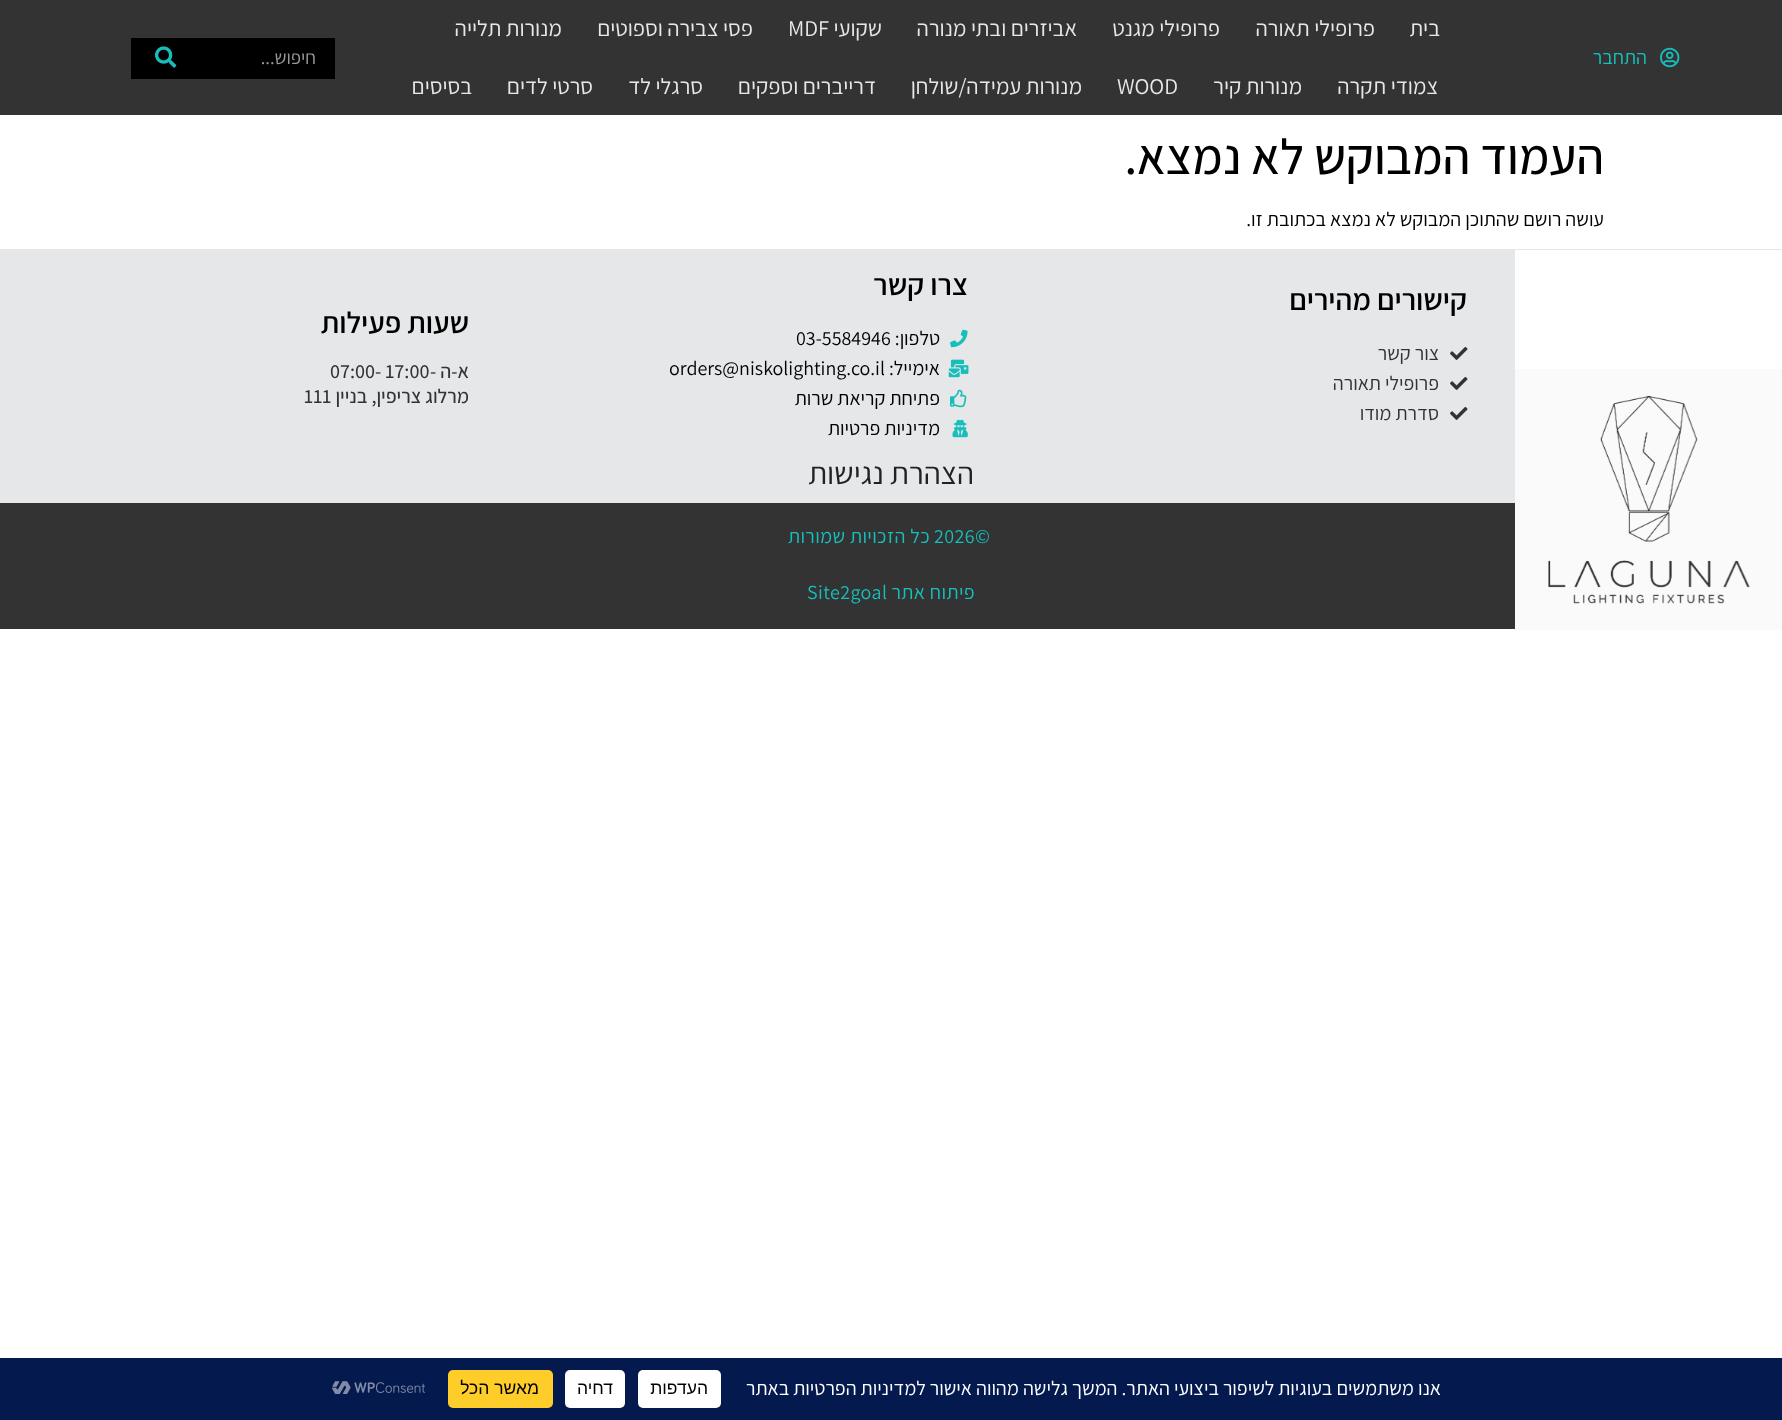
<svg xmlns="http://www.w3.org/2000/svg" width="1782" height="1420" viewBox="0 0 1782 1420">
  <rect width="100%" height="100%" fill="#ffffff"/>
  <rect x="0" y="0" width="1782" height="115" fill="#333333"/>
  <image x="1660" y="47" width="20" height="21" href="img1.png"/>
  <text x="1647" y="64" font-family="Assistant" font-size="20" direction="rtl" fill="#17bebb">התחבר</text>
  <text x="1440" y="36" font-family="Assistant" font-size="22.5" direction="rtl" fill="#e6e7e8">בית</text>
  <text x="1375" y="36" font-family="Assistant" font-size="22.5" direction="rtl" fill="#e6e7e8">פרופילי תאורה</text>
  <text x="1220" y="36" font-family="Assistant" font-size="22.5" direction="rtl" fill="#e6e7e8">פרופילי מגנט</text>
  <text x="1077" y="36" font-family="Assistant" font-size="22.5" direction="rtl" fill="#e6e7e8">אביזרים ובתי מנורה</text>
  <text x="882" y="36" font-family="Assistant" font-size="22.5" direction="rtl" fill="#e6e7e8">שקועי</text>
  <text x="788" y="36" font-family="Assistant" font-size="22.5" fill="#e6e7e8">MDF</text>
  <text x="753" y="36" font-family="Assistant" font-size="22.5" direction="rtl" fill="#e6e7e8">פסי צבירה וספוטים</text>
  <text x="562" y="36" font-family="Assistant" font-size="22.5" direction="rtl" fill="#e6e7e8">מנורות תלייה</text>
  <text x="1438" y="94" font-family="Assistant" font-size="22.5" direction="rtl" fill="#e6e7e8">צמודי תקרה</text>
  <text x="1302" y="94" font-family="Assistant" font-size="22.5" direction="rtl" fill="#e6e7e8">מנורות קיר</text>
  <text x="1117" y="94" font-family="Assistant" font-size="22.5" fill="#e6e7e8">WOOD</text>
  <text x="1082" y="94" font-family="Assistant" font-size="22.5" direction="rtl" fill="#e6e7e8">מנורות עמידה/שולחן</text>
  <text x="876" y="94" font-family="Assistant" font-size="22.5" direction="rtl" fill="#e6e7e8">דרייברים וספקים</text>
  <text x="703" y="94" font-family="Assistant" font-size="22.5" direction="rtl" fill="#e6e7e8">סרגלי לד</text>
  <text x="593" y="94" font-family="Assistant" font-size="22.5" direction="rtl" fill="#e6e7e8">סרטי לדים</text>
  <text x="472" y="94" font-family="Assistant" font-size="22.5" direction="rtl" fill="#e6e7e8">בסיסים</text>
  <rect x="131" y="38" width="204" height="41" fill="#000000"/>
  <text x="316" y="64" font-family="Assistant" font-size="19" direction="rtl" fill="#999999">חיפוש...</text>
  <image x="155" y="46" width="22" height="22" href="img2.png"/>
  <text x="1604" y="174" font-family="Assistant" font-size="50" font-weight="500" direction="rtl" fill="#000000">העמוד המבוקש לא נמצא.</text>
  <text x="1604" y="226" font-family="Assistant" font-size="20" direction="rtl" fill="#000000">עושה רושם שהתוכן המבוקש לא נמצא בכתובת זו.</text>
  <rect x="0" y="249" width="1782" height="226" fill="#e6e7e8"/>
  <rect x="1515" y="250" width="267" height="225" fill="#ffffff"/>
  <rect x="1515" y="369" width="267" height="261" fill="#fafafa"/>
  <image x="1548" y="395" width="202" height="209" href="img3.png"/>
  <text x="1467" y="310" font-family="Assistant" font-size="30" font-weight="600" direction="rtl" fill="#000000">קישורים מהירים</text>
  <image x="1450" y="346" width="18" height="14" href="img4.png"/>
  <text x="1439" y="360" font-family="Assistant" font-size="20" direction="rtl" fill="#333333">צור קשר</text>
  <image x="1450" y="376" width="18" height="14" href="img4.png"/>
  <text x="1439" y="390" font-family="Assistant" font-size="20" direction="rtl" fill="#333333">פרופילי תאורה</text>
  <image x="1450" y="406" width="18" height="14" href="img4.png"/>
  <text x="1439" y="420" font-family="Assistant" font-size="20" direction="rtl" fill="#333333">סדרת מודו</text>
  <text x="968" y="295" font-family="Assistant" font-size="30" font-weight="600" direction="rtl" fill="#000000">צרו קשר</text>
  <image x="950" y="329" width="18" height="19" href="img5.png"/>
  <text x="940" y="345" font-family="Assistant" font-size="20" direction="rtl" fill="#000000">טלפון:</text>
  <text x="796" y="345" font-family="Assistant" font-size="20" fill="#000000">03-5584946</text>
  <image x="948" y="359" width="21" height="19" href="img6.png"/>
  <text x="940" y="375" font-family="Assistant" font-size="20" direction="rtl" fill="#000000">אימייל:</text>
  <text x="669" y="375" font-family="Assistant" font-size="20" fill="#000000">orders@niskolighting.co.il</text>
  <image x="950" y="389" width="17" height="19" href="img7.png"/>
  <text x="940" y="405" font-family="Assistant" font-size="20" direction="rtl" fill="#000000">פתיחת קריאת שרות</text>
  <image x="952" y="419" width="16" height="19" href="img8.png"/>
  <text x="940" y="435" font-family="Assistant" font-size="20" direction="rtl" fill="#000000">מדיניות פרטיות</text>
  <text x="469" y="333" font-family="Assistant" font-size="30" font-weight="600" direction="rtl" fill="#000000">שעות פעילות</text>
  <text x="469" y="378" font-family="Assistant" font-size="20" font-weight="500" direction="rtl" fill="#333333">א-ה -</text>
  <text x="330" y="378" font-family="Assistant" font-size="20" font-weight="500" fill="#333333">07:00- 17:00</text>
  <text x="469" y="403" font-family="Assistant" font-size="20" font-weight="500" direction="rtl" fill="#333333">מרלוג צריפין, בניין</text>
  <text x="304" y="403" font-family="Assistant" font-size="20" font-weight="500" fill="#333333">111</text>
  <rect x="0" y="475" width="1515" height="28" fill="#e6e7e8"/>
  <text x="974" y="484" font-family="Assistant" font-size="31.25" direction="rtl" fill="#222222">הצהרת נגישות</text>
  <rect x="0" y="503" width="1515" height="126" fill="#333333"/>
  <text x="934" y="543" font-family="Assistant" font-size="20" letter-spacing="0.4" fill="#17bebb">2026©</text>
  <text x="930" y="543" font-family="Assistant" font-size="20" letter-spacing="0.4" direction="rtl" fill="#17bebb">כל הזכויות שמורות</text>
  <text x="975" y="599" font-family="Assistant" font-size="20" letter-spacing="0.4" direction="rtl" fill="#17bebb">פיתוח אתר</text>
  <text x="807" y="599" font-family="Assistant" font-size="20" letter-spacing="0.4" fill="#17bebb">Site2goal</text>
  <rect x="0" y="1358" width="1782" height="62" fill="#04194e"/>
  <text x="1441" y="1395" font-family="Assistant" font-size="20" direction="rtl" fill="#ffffff">אנו משתמשים בעוגיות לשיפור ביצועי האתר. המשך גלישה מהווה אישור למדיניות הפרטיות באתר</text>
  <rect x="638" y="1370" width="83" height="38" rx="5" fill="#ffffff"/>
  <text x="708" y="1394" font-family="Liberation Sans" font-size="17.5" direction="rtl" fill="#000000">העדפות</text>
  <rect x="565" y="1370" width="60" height="38" rx="5" fill="#ffffff"/>
  <text x="613" y="1394" font-family="Liberation Sans" font-size="17.5" direction="rtl" fill="#000000">דחיה</text>
  <rect x="448" y="1370" width="105" height="38" rx="5" fill="#ffcd2a"/>
  <text x="539" y="1394" font-family="Liberation Sans" font-size="17.5" direction="rtl" fill="#000000">מאשר הכל</text>
  <image x="332" y="1381" width="93" height="13" href="img9.png"/>
</svg>
